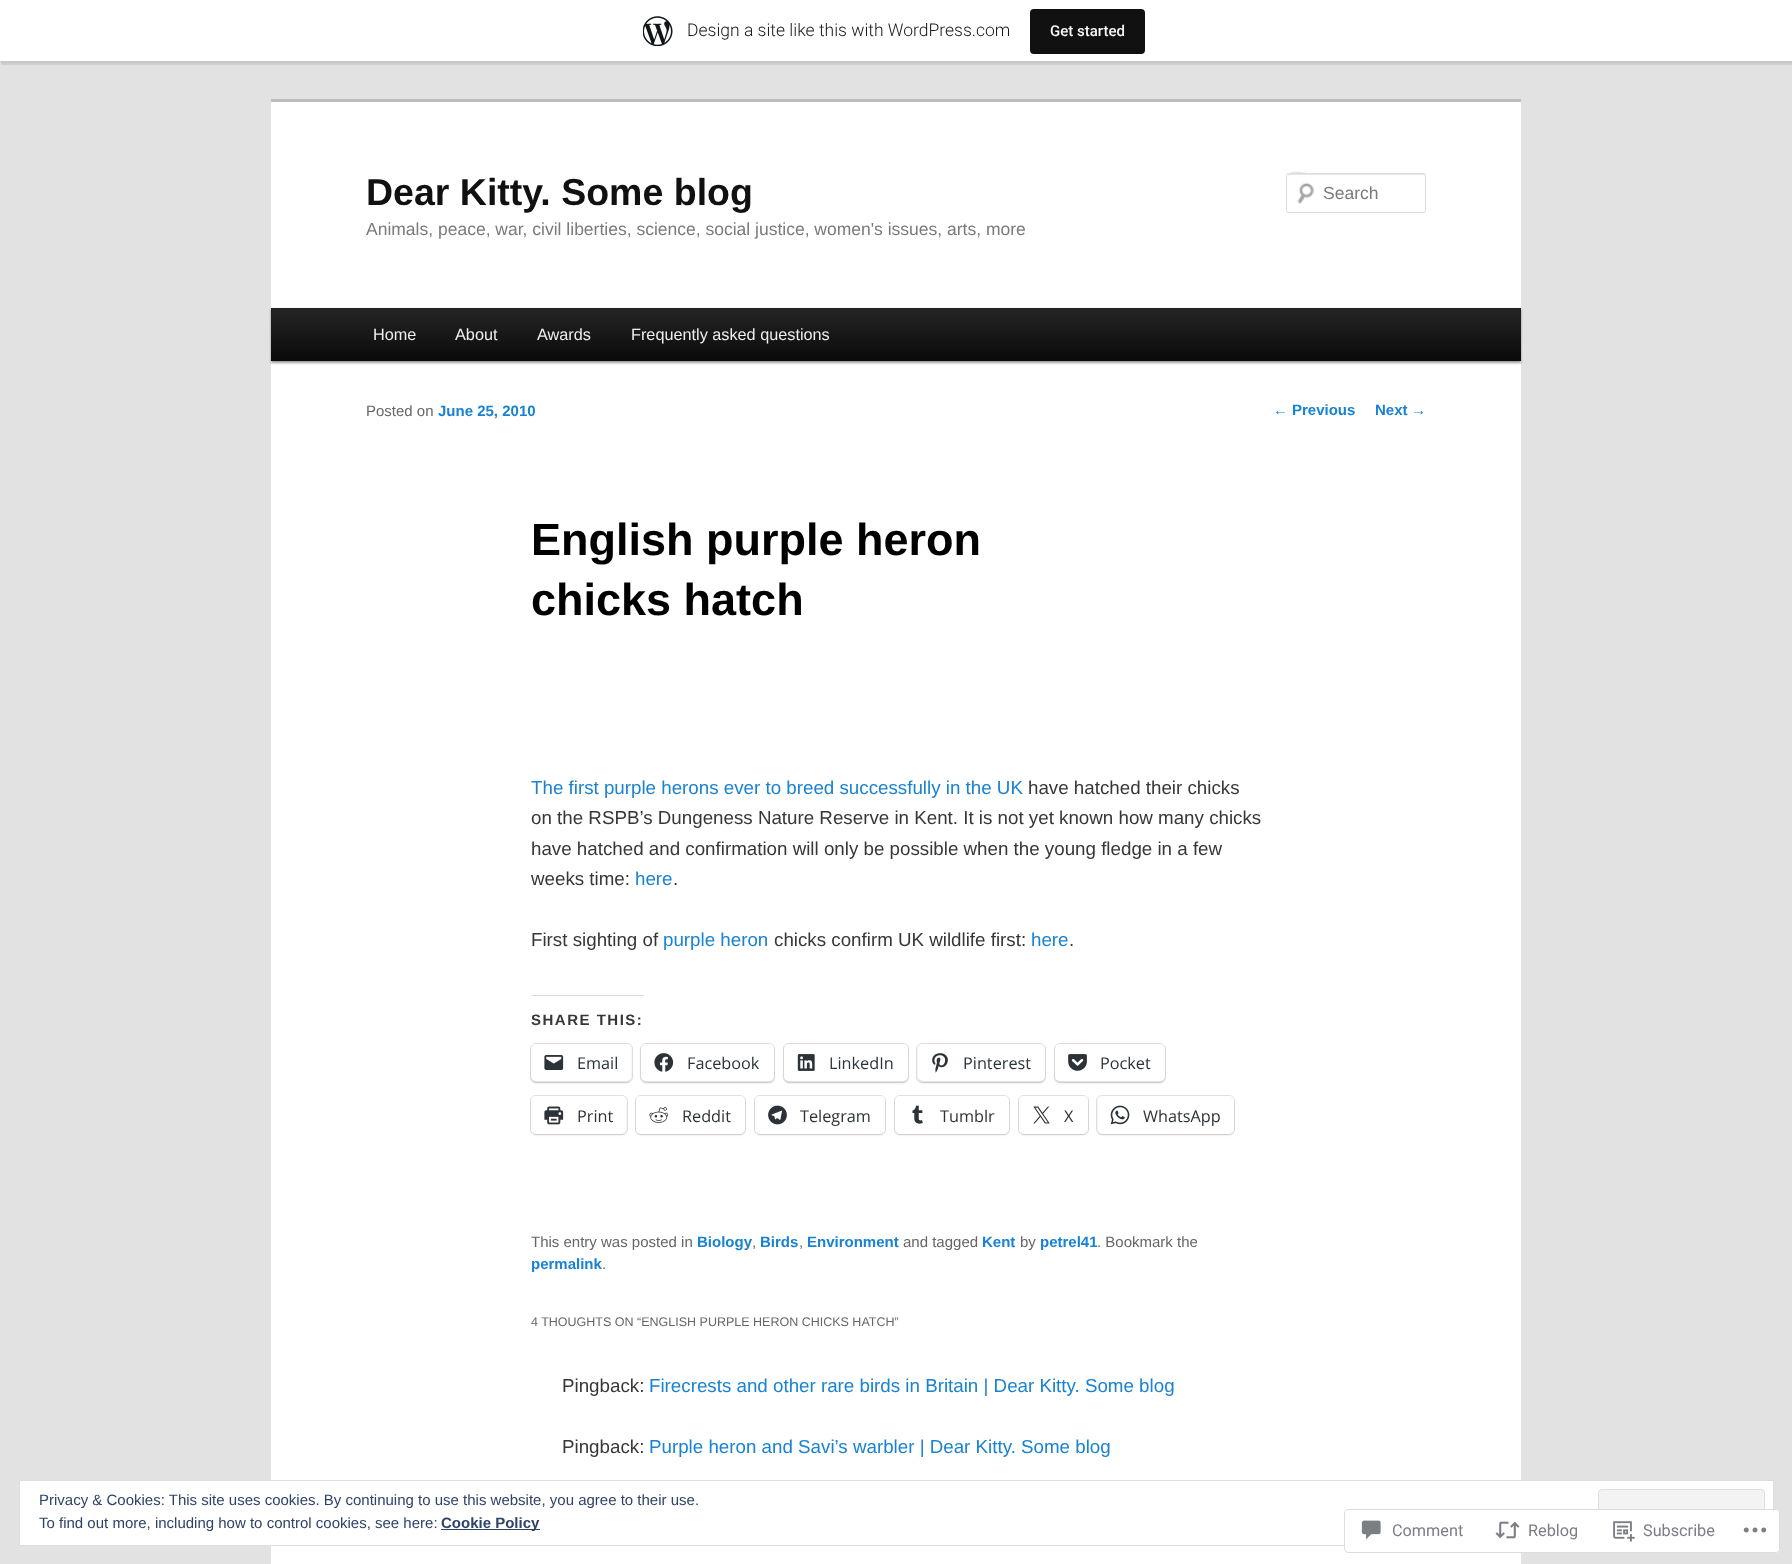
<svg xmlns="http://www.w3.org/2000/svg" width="1792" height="1564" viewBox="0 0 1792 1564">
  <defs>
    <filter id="blur1" x="-50%" y="-200%" width="200%" height="500%"><feGaussianBlur stdDeviation="1"/></filter>
    <linearGradient id="g1" gradientUnits="userSpaceOnUse" x1="896" y1="307" x2="896" y2="361"><stop offset="0" stop-color="#252525"/><stop offset="1" stop-color="#0a0a0a"/></linearGradient>
  </defs>
  <rect width="100%" height="100%" fill="#e2e2e2"/>
  <rect x="0" y="1" width="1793" height="62" fill="#000000" fill-opacity="0.05" filter="url(#blur1)"/>
  <path d="M1 61V65H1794V4H1792V61Z" fill="#000000" fill-opacity="0.08"/>
  <rect x="0" y="0" width="1792" height="61" fill="#ffffff"/>
  <image x="643" y="16" width="30" height="30" href="img1.png"/>
  <text x="687" y="36" font-family="Roboto" font-size="17.5" font-weight="300" fill="#171717">Design a site like this with WordPress.com</text>
  <rect x="1030" y="9" width="115" height="45" rx="4" fill="#111111"/>
  <text x="1050" y="36" font-family="Roboto" font-size="15" font-weight="500" fill="#f6f7f7">Get started</text>
  <rect x="271" y="102" width="1250" height="1462" fill="#ffffff"/>
  <rect x="271" y="99" width="1250" height="3" fill="#bbbbbb"/>
  <text x="366" y="205" font-family="Liberation Sans" font-size="37.5" font-weight="bold" fill="#111111">Dear Kitty. Some blog</text>
  <text x="366" y="235" font-family="Liberation Sans" font-size="17.5" fill="#7a7a7a">Animals, peace, war, civil liberties, science, social justice, women's issues, arts, more</text>
  <image x="1297" y="182" width="17" height="22" href="img2.png"/>
  <path d="M1289 175H1424L1425 176V174H1312C1311 174 1288 168 1288 176Z" fill="#e6e6e6"/>
  <rect x="1286.5" y="173.5" width="139" height="39" rx="2" fill="none" stroke="#dddddd"/>
  <text x="1323" y="199" font-family="Liberation Sans" font-size="17.5" fill="#7a7a7a">Search</text>
  <rect x="271" y="309" width="1250" height="54" fill="#000000" fill-opacity="0.4" filter="url(#blur1)"/>
  <rect x="271" y="308" width="1250" height="53" fill="url(#g1)"/>
  <text x="373" y="340" font-family="Liberation Sans" font-size="16.25" fill="#eeeeee">Home</text>
  <text x="455" y="340" font-family="Liberation Sans" font-size="16.25" fill="#eeeeee">About</text>
  <text x="537" y="340" font-family="Liberation Sans" font-size="16.25" fill="#eeeeee">Awards</text>
  <text x="631" y="340" font-family="Liberation Sans" font-size="16.25" fill="#eeeeee">Frequently asked questions</text>
  <text x="366" y="416" font-family="Liberation Sans" font-size="15" fill="#666666">Posted on</text>
  <text x="438" y="416" font-family="Liberation Sans" font-size="15" font-weight="bold" fill="#1982d1">June 25, 2010</text>
  <text x="531" y="555" font-family="Liberation Sans" font-size="45" font-weight="bold" fill="#000000">English purple heron</text>
  <text x="531" y="615" font-family="Liberation Sans" font-size="45" font-weight="bold" fill="#000000">chicks hatch</text>
  <text x="531" y="794" font-family="Liberation Sans" font-size="18.75" fill="#1982d1">The first purple herons ever to breed successfully in the UK</text>
  <text x="1028" y="794" font-family="Liberation Sans" font-size="18.75" fill="#373737">have hatched their chicks</text>
  <text x="531" y="824" font-family="Liberation Sans" font-size="18.75" fill="#373737">on the RSPB’s Dungeness Nature Reserve in Kent. It is not yet known how many chicks</text>
  <text x="531" y="855" font-family="Liberation Sans" font-size="18.75" fill="#373737">have hatched and confirmation will only be possible when the young fledge in a few</text>
  <text x="531" y="885" font-family="Liberation Sans" font-size="18.75" fill="#373737">weeks time:</text>
  <text x="635" y="885" font-family="Liberation Sans" font-size="18.75" fill="#1982d1">here</text>
  <text x="673" y="885" font-family="Liberation Sans" font-size="18.75" fill="#373737">.</text>
  <text x="531" y="946" font-family="Liberation Sans" font-size="18.75" fill="#373737">First sighting of</text>
  <text x="663" y="946" font-family="Liberation Sans" font-size="18.75" fill="#1982d1">purple heron</text>
  <text x="774" y="946" font-family="Liberation Sans" font-size="18.75" fill="#373737">chicks confirm UK wildlife first:</text>
  <text x="1031" y="946" font-family="Liberation Sans" font-size="18.75" fill="#1982d1">here</text>
  <text x="1069" y="946" font-family="Liberation Sans" font-size="18.75" fill="#373737">.</text>
  <rect x="531" y="995" width="113" height="1" fill="#dcdcde"/>
  <text x="531" y="1025" font-family="Liberation Sans" font-size="15" font-weight="bold" letter-spacing="1.5" fill="#373737">SHARE THIS:</text>
  <rect x="530.5" y="1043.5" width="102" height="39" rx="5.5" fill="none" stroke="#e0e0e0"/>
  <rect x="531" y="1045" width="100" height="38" rx="5" fill="#000000" fill-opacity="0.12" filter="url(#blur1)"/>
  <rect x="531" y="1044" width="100" height="37" rx="5" fill="#ffffff"/>
  <image x="544" y="1055" width="20" height="15" href="img3.png"/>
  <text x="577" y="1069" font-family="Open Sans" font-size="16.25" fill="#2c3338">Email</text>
  <rect x="640.5" y="1043.5" width="134" height="39" rx="5.5" fill="none" stroke="#e0e0e0"/>
  <rect x="641" y="1045" width="133" height="38" rx="5" fill="#000000" fill-opacity="0.12" filter="url(#blur1)"/>
  <rect x="641" y="1044" width="133" height="37" rx="5" fill="#ffffff"/>
  <image x="654" y="1053" width="20" height="19" href="img4.png"/>
  <text x="687" y="1069" font-family="Open Sans" font-size="16.25" fill="#2c3338">Facebook</text>
  <rect x="783.5" y="1043.5" width="125" height="39" rx="5.5" fill="none" stroke="#e0e0e0"/>
  <rect x="784" y="1045" width="124" height="38" rx="5" fill="#000000" fill-opacity="0.12" filter="url(#blur1)"/>
  <rect x="784" y="1044" width="124" height="37" rx="5" fill="#ffffff"/>
  <image x="797" y="1054" width="18" height="17" href="img5.png"/>
  <text x="829" y="1069" font-family="Open Sans" font-size="16.25" fill="#2c3338">LinkedIn</text>
  <rect x="916.5" y="1043.5" width="129" height="39" rx="5.5" fill="none" stroke="#e0e0e0"/>
  <rect x="918" y="1045" width="127" height="38" rx="5" fill="#000000" fill-opacity="0.12" filter="url(#blur1)"/>
  <rect x="918" y="1044" width="127" height="37" rx="5" fill="#ffffff"/>
  <image x="932" y="1053" width="16" height="20" href="img6.png"/>
  <text x="963" y="1069" font-family="Open Sans" font-size="16.25" fill="#2c3338">Pinterest</text>
  <rect x="1054.5" y="1043.5" width="111" height="39" rx="5.5" fill="none" stroke="#e0e0e0"/>
  <rect x="1055" y="1045" width="110" height="38" rx="5" fill="#000000" fill-opacity="0.12" filter="url(#blur1)"/>
  <rect x="1055" y="1044" width="110" height="37" rx="5" fill="#ffffff"/>
  <image x="1068" y="1054" width="19" height="17" href="img7.png"/>
  <text x="1100" y="1069" font-family="Open Sans" font-size="16.25" fill="#2c3338">Pocket</text>
  <rect x="530.5" y="1095.5" width="97" height="39" rx="5.5" fill="none" stroke="#e0e0e0"/>
  <rect x="531" y="1098" width="95" height="37" rx="5" fill="#000000" fill-opacity="0.12" filter="url(#blur1)"/>
  <rect x="531" y="1096" width="95" height="38" rx="5" fill="#ffffff"/>
  <image x="544" y="1106" width="20" height="19" href="img8.png"/>
  <text x="577" y="1122" font-family="Open Sans" font-size="16.25" fill="#2c3338">Print</text>
  <rect x="635.5" y="1095.5" width="110" height="39" rx="5.5" fill="none" stroke="#e0e0e0"/>
  <rect x="636" y="1098" width="109" height="37" rx="5" fill="#000000" fill-opacity="0.12" filter="url(#blur1)"/>
  <rect x="636" y="1096" width="109" height="38" rx="5" fill="#ffffff"/>
  <image x="649" y="1107" width="20" height="16" href="img9.png"/>
  <text x="682" y="1122" font-family="Open Sans" font-size="16.25" fill="#2c3338">Reddit</text>
  <rect x="754.5" y="1095.5" width="131" height="39" rx="5.5" fill="none" stroke="#e0e0e0"/>
  <rect x="755" y="1098" width="130" height="37" rx="5" fill="#000000" fill-opacity="0.12" filter="url(#blur1)"/>
  <rect x="755" y="1096" width="130" height="38" rx="5" fill="#ffffff"/>
  <image x="768" y="1105" width="19" height="20" href="img10.png"/>
  <text x="800" y="1122" font-family="Open Sans" font-size="16.25" fill="#2c3338">Telegram</text>
  <rect x="894.5" y="1095.5" width="115" height="39" rx="5.5" fill="none" stroke="#e0e0e0"/>
  <rect x="895" y="1098" width="114" height="37" rx="5" fill="#000000" fill-opacity="0.12" filter="url(#blur1)"/>
  <rect x="895" y="1096" width="114" height="38" rx="5" fill="#ffffff"/>
  <image x="912" y="1105" width="11" height="19" href="img11.png"/>
  <text x="940" y="1122" font-family="Open Sans" font-size="16.25" fill="#2c3338">Tumblr</text>
  <rect x="1018.5" y="1095.5" width="70" height="39" rx="5.5" fill="none" stroke="#e0e0e0"/>
  <rect x="1019" y="1098" width="69" height="37" rx="5" fill="#000000" fill-opacity="0.12" filter="url(#blur1)"/>
  <rect x="1019" y="1096" width="69" height="38" rx="5" fill="#ffffff"/>
  <image x="1033" y="1106" width="17" height="18" href="img12.png"/>
  <text x="1064" y="1122" font-family="Open Sans" font-size="16.25" fill="#2c3338">X</text>
  <rect x="1096.5" y="1095.5" width="138" height="39" rx="5.5" fill="none" stroke="#e0e0e0"/>
  <rect x="1098" y="1098" width="136" height="37" rx="5" fill="#000000" fill-opacity="0.12" filter="url(#blur1)"/>
  <rect x="1098" y="1096" width="136" height="38" rx="5" fill="#ffffff"/>
  <image x="1110" y="1105" width="20" height="20" href="img13.png"/>
  <text x="1143" y="1122" font-family="Open Sans" font-size="16.25" fill="#2c3338">WhatsApp</text>
  <text x="531" y="1247" font-family="Liberation Sans" font-size="15" fill="#666666">This entry was posted in</text>
  <text x="697" y="1247" font-family="Liberation Sans" font-size="15" font-weight="bold" fill="#1982d1">Biology</text>
  <text x="752" y="1247" font-family="Liberation Sans" font-size="15" fill="#666666">,</text>
  <text x="760" y="1247" font-family="Liberation Sans" font-size="15" font-weight="bold" fill="#1982d1">Birds</text>
  <text x="799" y="1247" font-family="Liberation Sans" font-size="15" fill="#666666">,</text>
  <text x="807" y="1247" font-family="Liberation Sans" font-size="15" font-weight="bold" fill="#1982d1">Environment</text>
  <text x="903" y="1247" font-family="Liberation Sans" font-size="15" fill="#666666">and tagged</text>
  <text x="982" y="1247" font-family="Liberation Sans" font-size="15" font-weight="bold" fill="#1982d1">Kent</text>
  <text x="1020" y="1247" font-family="Liberation Sans" font-size="15" fill="#666666">by</text>
  <text x="1040" y="1247" font-family="Liberation Sans" font-size="15" font-weight="bold" fill="#1982d1">petrel41</text>
  <text x="1097" y="1247" font-family="Liberation Sans" font-size="15" fill="#666666">. Bookmark the</text>
  <text x="531" y="1269" font-family="Liberation Sans" font-size="15" font-weight="bold" fill="#1982d1">permalink</text>
  <text x="602" y="1269" font-family="Liberation Sans" font-size="15" fill="#666666">.</text>
  <text x="1273" y="415" font-family="Liberation Sans" font-size="15" fill="#1982d1">←</text>
  <text x="1292" y="415" font-family="Liberation Sans" font-size="15" font-weight="bold" fill="#1982d1">Previous</text>
  <text x="1375" y="415" font-family="Liberation Sans" font-size="15" font-weight="bold" fill="#1982d1">Next</text>
  <text x="1411" y="415" font-family="Liberation Sans" font-size="15" fill="#1982d1">→</text>
  <text x="531" y="1326" font-family="Liberation Sans" font-size="12.5" fill="#666666">4 THOUGHTS ON “ENGLISH PURPLE HERON CHICKS HATCH”</text>
  <text x="562" y="1392" font-family="Liberation Sans" font-size="18.75" fill="#373737">Pingback:</text>
  <text x="649" y="1392" font-family="Liberation Sans" font-size="18.75" fill="#1982d1">Firecrests and other rare birds in Britain | Dear Kitty. Some blog</text>
  <text x="562" y="1453" font-family="Liberation Sans" font-size="18.75" fill="#373737">Pingback:</text>
  <text x="649" y="1453" font-family="Liberation Sans" font-size="18.75" fill="#1982d1">Purple heron and Savi’s warbler | Dear Kitty. Some blog</text>
  <rect x="19.5" y="1480.5" width="1754" height="65" fill="#ffffff" stroke="#dedede"/>
  <text x="39" y="1505" font-family="Liberation Sans" font-size="15" fill="#2e4467">Privacy &amp; Cookies: This site uses cookies. By continuing to use this website, you agree to their use.</text>
  <rect x="1598.5" y="1489.5" width="166" height="48" rx="3.5" fill="#f3f3f3" stroke="#dedede"/>
  <text x="39" y="1528" font-family="Liberation Sans" font-size="15" fill="#2e4467">To find out more, including how to control cookies, see here:</text>
  <rect x="441" y="1529" width="99" height="1" fill="#2e4467"/>
  <text x="441" y="1528" font-family="Liberation Sans" font-size="15" font-weight="bold" fill="#2e4467">Cookie Policy</text>
  <rect x="1344" y="1509" width="436" height="44" rx="4" fill="#ffffff" fill-opacity="0.98"/>
  <rect x="1344.5" y="1509.5" width="435" height="43" rx="3.5" fill="none" stroke="#dcdcde" stroke-opacity="0.98"/>
  <image x="1361" y="1520" width="20" height="20" href="img14.png"/>
  <text x="1392" y="1536" font-family="Roboto" font-size="16.25" fill="#7b7f85">Comment</text>
  <image x="1495" y="1521" width="25" height="18" href="img15.png"/>
  <text x="1528" y="1536" font-family="Roboto" font-size="16.25" fill="#7b7f85">Reblog</text>
  <image x="1613" y="1521" width="22" height="21" href="img16.png"/>
  <text x="1643" y="1536" font-family="Roboto" font-size="16.25" fill="#7b7f85">Subscribe</text>
  <image x="1743" y="1527" width="24" height="6" href="img17.png"/>
</svg>
